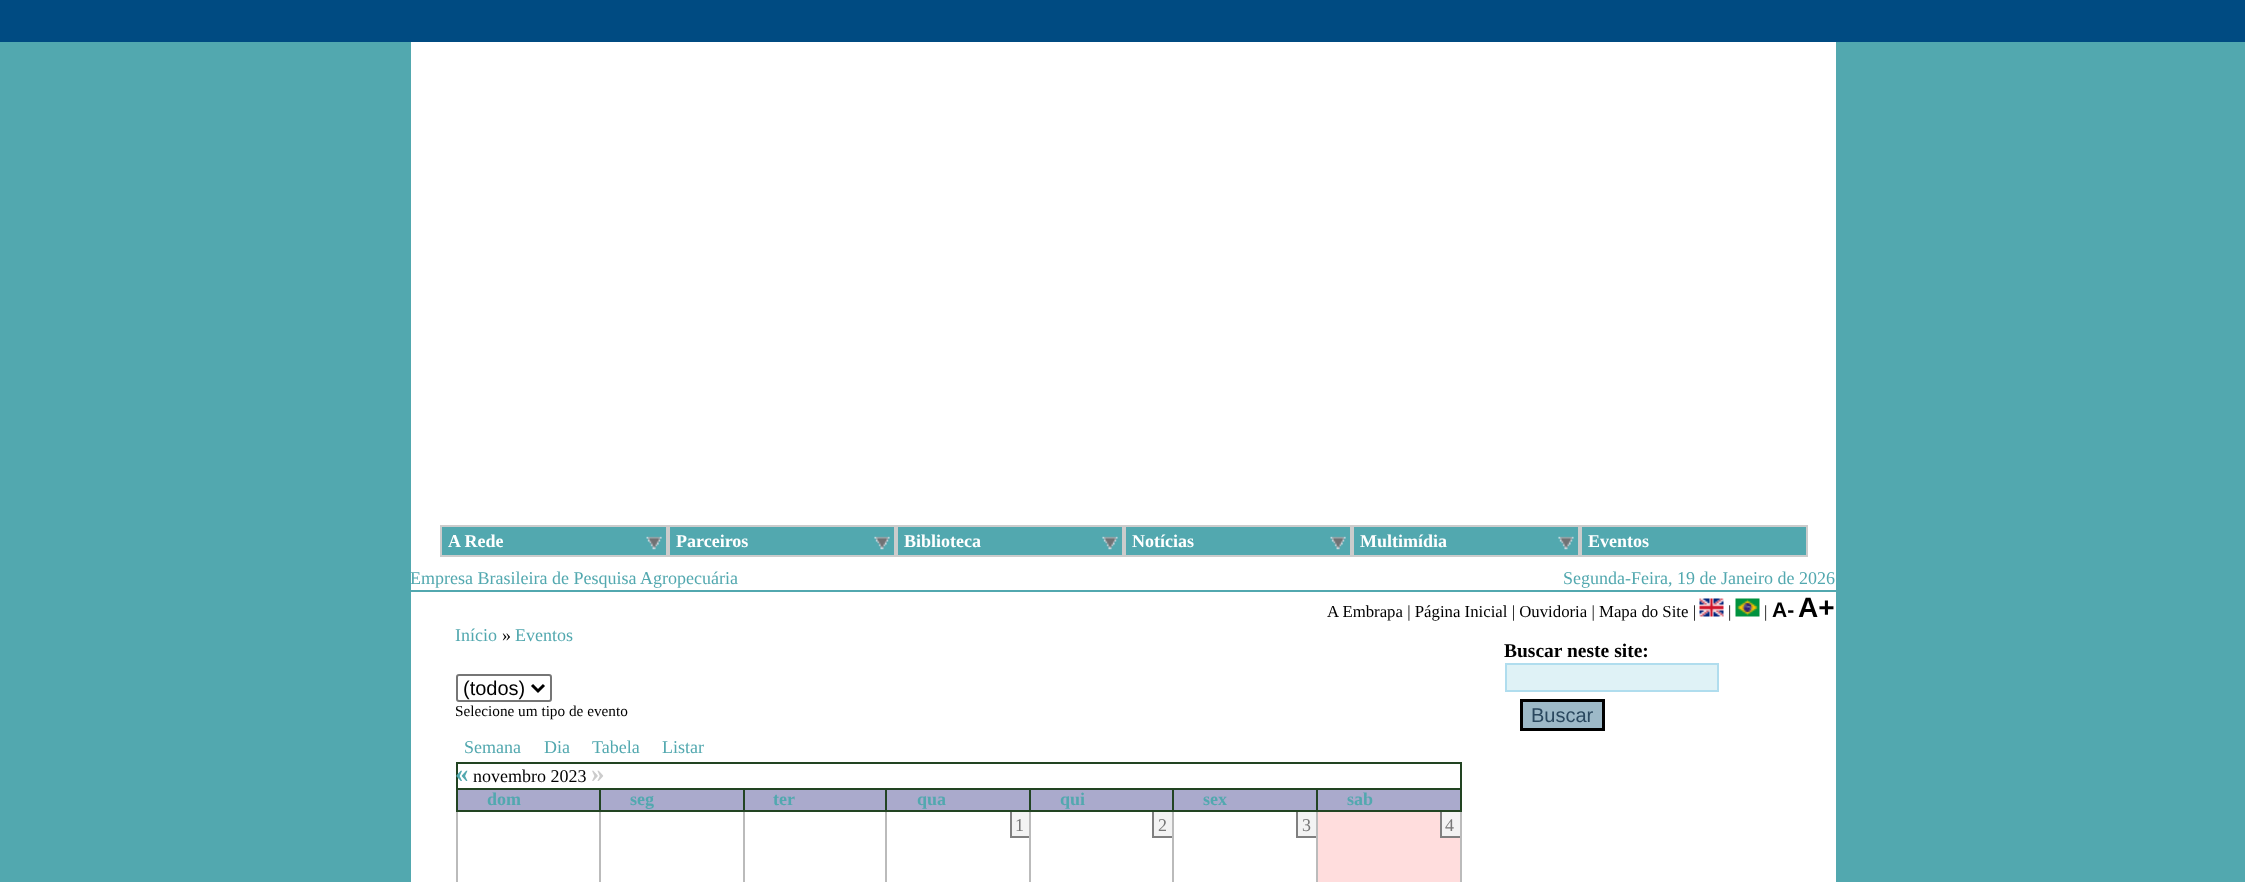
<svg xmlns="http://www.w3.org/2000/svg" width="2245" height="882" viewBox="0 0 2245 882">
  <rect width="100%" height="100%" fill="#52a8af"/>
  <rect x="0" y="0" width="2245" height="42" fill="#004b82"/>
  <rect x="411" y="42" width="1425" height="840" fill="#ffffff"/>
  <rect x="442" y="527" width="224" height="28" fill="#52a8af"/>
  <image x="646" y="536" width="16" height="14" href="img1.png"/>
  <rect x="441" y="526" width="226" height="30" fill="none" stroke="#cccccc" stroke-width="2"/>
  <text x="448" y="547" font-family="Liberation Serif" font-size="18" font-weight="bold" fill="#ffffff">A Rede</text>
  <rect x="670" y="527" width="224" height="28" fill="#52a8af"/>
  <image x="874" y="536" width="16" height="14" href="img2.png"/>
  <rect x="669" y="526" width="226" height="30" fill="none" stroke="#cccccc" stroke-width="2"/>
  <text x="676" y="547" font-family="Liberation Serif" font-size="18" font-weight="bold" fill="#ffffff">Parceiros</text>
  <rect x="898" y="527" width="224" height="28" fill="#52a8af"/>
  <image x="1102" y="536" width="16" height="14" href="img2.png"/>
  <rect x="897" y="526" width="226" height="30" fill="none" stroke="#cccccc" stroke-width="2"/>
  <text x="904" y="547" font-family="Liberation Serif" font-size="18" font-weight="bold" fill="#ffffff">Biblioteca</text>
  <rect x="1126" y="527" width="224" height="28" fill="#52a8af"/>
  <image x="1330" y="536" width="16" height="14" href="img1.png"/>
  <rect x="1125" y="526" width="226" height="30" fill="none" stroke="#cccccc" stroke-width="2"/>
  <text x="1132" y="547" font-family="Liberation Serif" font-size="18" font-weight="bold" fill="#ffffff">Notícias</text>
  <rect x="1354" y="527" width="224" height="28" fill="#52a8af"/>
  <image x="1558" y="536" width="16" height="14" href="img2.png"/>
  <rect x="1353" y="526" width="226" height="30" fill="none" stroke="#cccccc" stroke-width="2"/>
  <text x="1360" y="547" font-family="Liberation Serif" font-size="18" font-weight="bold" fill="#ffffff">Multimídia</text>
  <rect x="1581" y="526" width="226" height="30" fill="#52a8af" stroke="#cccccc" stroke-width="2"/>
  <text x="1588" y="547" font-family="Liberation Serif" font-size="18" font-weight="bold" fill="#ffffff">Eventos</text>
  <rect x="411" y="590" width="1425" height="2" fill="#52a8af"/>
  <text x="410" y="584" font-family="Liberation Serif" font-size="18" fill="#52a8af">Empresa Brasileira de Pesquisa Agropecuária</text>
  <text x="1563" y="584" font-family="Liberation Serif" font-size="18" fill="#52a8af">Segunda-Feira, 19 de Janeiro de 2026</text>
  <text x="1327" y="617" font-family="Liberation Serif" font-size="16.8" fill="#000000">A Embrapa | Página Inicial | Ouvidoria | Mapa do Site |</text>
  <image x="1699" y="598" width="25" height="19" href="img3.png"/>
  <text x="1728" y="617" font-family="Liberation Serif" font-size="16.8" fill="#000000">|</text>
  <image x="1735" y="598" width="25" height="19" href="img4.png"/>
  <text x="1764" y="617" font-family="Liberation Serif" font-size="16.8" fill="#000000">|</text>
  <text x="1772" y="617" font-family="Liberation Sans" font-size="21" font-weight="bold" fill="#000000">A-</text>
  <text x="1798" y="617" font-family="Liberation Sans" font-size="28" font-weight="bold" fill="#000000">A+</text>
  <text x="455" y="641" font-family="Liberation Serif" font-size="18" fill="#52a8af">Início</text>
  <text x="502" y="641" font-family="Liberation Serif" font-size="18" fill="#000000">»</text>
  <text x="515" y="641" font-family="Liberation Serif" font-size="18" fill="#52a8af">Eventos</text>
  <rect x="457" y="675" width="94" height="26" rx="2" fill="none" stroke="#767676" stroke-width="2"/>
  <path d="M532 685L538 691L544 685" fill="none" stroke="#000000" stroke-width="3"/>
  <text x="463" y="695" font-family="Liberation Sans" font-size="20" fill="#000000">(todos)</text>
  <text x="455" y="716" font-family="Liberation Serif" font-size="15.25" fill="#000000">Selecione um tipo de evento</text>
  <text x="464" y="753" font-family="Liberation Serif" font-size="18" fill="#52a8af">Semana</text>
  <text x="544" y="753" font-family="Liberation Serif" font-size="18" fill="#52a8af">Dia</text>
  <text x="592" y="753" font-family="Liberation Serif" font-size="18" fill="#52a8af">Tabela</text>
  <text x="662" y="753" font-family="Liberation Serif" font-size="18" fill="#52a8af">Listar</text>
  <rect x="456" y="762" width="1005" height="2" fill="#224422"/>
  <rect x="1460" y="762" width="2" height="26" fill="#224422"/>
  <rect x="456" y="762" width="2" height="48" fill="#224422"/>
  <text x="455" y="782" font-family="Liberation Serif" font-size="27" font-weight="bold" fill="#52a8af">«</text>
  <text x="473" y="782" font-family="Liberation Serif" font-size="18" fill="#000000">novembro 2023</text>
  <text x="591" y="782" font-family="Liberation Serif" font-size="27" font-weight="bold" fill="#cccccc">»</text>
  <rect x="458" y="790" width="141" height="20" fill="#aaaacc"/>
  <rect x="1316" y="788" width="145" height="2" fill="#224422"/>
  <rect x="1460" y="810" width="2" height="72" fill="#bbbbbb"/>
  <rect x="1460" y="788" width="2" height="24" fill="#224422"/>
  <rect x="1316" y="810" width="2" height="72" fill="#bbbbbb"/>
  <rect x="1316" y="810" width="145" height="2" fill="#224422"/>
  <rect x="1316" y="788" width="2" height="24" fill="#224422"/>
  <rect x="1172" y="788" width="145" height="2" fill="#224422"/>
  <rect x="1172" y="810" width="2" height="72" fill="#bbbbbb"/>
  <rect x="1172" y="810" width="145" height="2" fill="#224422"/>
  <rect x="1172" y="788" width="2" height="24" fill="#224422"/>
  <rect x="1029" y="788" width="144" height="2" fill="#224422"/>
  <rect x="1029" y="810" width="2" height="72" fill="#bbbbbb"/>
  <rect x="1029" y="810" width="144" height="2" fill="#224422"/>
  <rect x="1029" y="788" width="2" height="24" fill="#224422"/>
  <rect x="885" y="788" width="146" height="2" fill="#224422"/>
  <rect x="885" y="810" width="2" height="72" fill="#bbbbbb"/>
  <rect x="885" y="810" width="146" height="2" fill="#224422"/>
  <rect x="885" y="788" width="2" height="24" fill="#224422"/>
  <rect x="743" y="788" width="144" height="2" fill="#224422"/>
  <rect x="743" y="810" width="2" height="72" fill="#bbbbbb"/>
  <rect x="743" y="810" width="144" height="2" fill="#224422"/>
  <rect x="743" y="788" width="2" height="24" fill="#224422"/>
  <rect x="599" y="788" width="145" height="2" fill="#224422"/>
  <rect x="599" y="810" width="2" height="72" fill="#bbbbbb"/>
  <rect x="599" y="810" width="145" height="2" fill="#224422"/>
  <rect x="599" y="788" width="2" height="24" fill="#224422"/>
  <rect x="456" y="788" width="144" height="2" fill="#224422"/>
  <rect x="456" y="810" width="2" height="72" fill="#bbbbbb"/>
  <rect x="456" y="810" width="144" height="2" fill="#224422"/>
  <text x="487" y="805" font-family="Liberation Serif" font-size="18" font-weight="bold" fill="#52a8af">dom</text>
  <rect x="601" y="790" width="142" height="20" fill="#aaaacc"/>
  <text x="630" y="805" font-family="Liberation Serif" font-size="18" font-weight="bold" fill="#52a8af">seg</text>
  <rect x="745" y="790" width="140" height="20" fill="#aaaacc"/>
  <text x="773" y="805" font-family="Liberation Serif" font-size="18" font-weight="bold" fill="#52a8af">ter</text>
  <rect x="887" y="790" width="142" height="20" fill="#aaaacc"/>
  <text x="917" y="805" font-family="Liberation Serif" font-size="18" font-weight="bold" fill="#52a8af">qua</text>
  <rect x="1031" y="790" width="141" height="20" fill="#aaaacc"/>
  <text x="1060" y="805" font-family="Liberation Serif" font-size="18" font-weight="bold" fill="#52a8af">qui</text>
  <rect x="1174" y="790" width="142" height="20" fill="#aaaacc"/>
  <text x="1203" y="805" font-family="Liberation Serif" font-size="18" font-weight="bold" fill="#52a8af">sex</text>
  <rect x="1318" y="790" width="142" height="20" fill="#aaaacc"/>
  <text x="1347" y="805" font-family="Liberation Serif" font-size="18" font-weight="bold" fill="#52a8af">sab</text>
  <rect x="1012" y="812" width="17" height="24" fill="#f3f3f3"/>
  <rect x="1010" y="836" width="19" height="2" fill="#808080"/>
  <rect x="1010" y="812" width="2" height="25" fill="#808080"/>
  <text x="1015" y="831" font-family="Liberation Serif" font-size="18" fill="#777777">1</text>
  <rect x="1154" y="812" width="18" height="24" fill="#f3f3f3"/>
  <rect x="1152" y="836" width="20" height="2" fill="#808080"/>
  <rect x="1152" y="812" width="2" height="25" fill="#808080"/>
  <text x="1158" y="831" font-family="Liberation Serif" font-size="18" fill="#777777">2</text>
  <rect x="1298" y="812" width="18" height="24" fill="#f3f3f3"/>
  <rect x="1296" y="836" width="20" height="2" fill="#808080"/>
  <rect x="1296" y="812" width="2" height="25" fill="#808080"/>
  <text x="1302" y="831" font-family="Liberation Serif" font-size="18" fill="#777777">3</text>
  <rect x="1318" y="812" width="142" height="70" fill="#ffdddd"/>
  <rect x="1442" y="812" width="18" height="24" fill="#f3f3f3"/>
  <rect x="1440" y="836" width="20" height="2" fill="#808080"/>
  <rect x="1440" y="812" width="2" height="25" fill="#808080"/>
  <text x="1445" y="831" font-family="Liberation Serif" font-size="18" fill="#777777">4</text>
  <text x="1504" y="657" font-family="Liberation Serif" font-size="19.5" font-weight="bold" fill="#000000">Buscar neste site:</text>
  <rect x="1506" y="664" width="212" height="27" fill="#dff2f6" stroke="#b0ddee" stroke-width="2"/>
  <rect x="1521.5" y="700.5" width="82" height="29" fill="#9db9c8" stroke="#000000" stroke-width="3"/>
  <text x="1531" y="722" font-family="Liberation Sans" font-size="20" fill="#2a485f">Buscar</text>
</svg>
